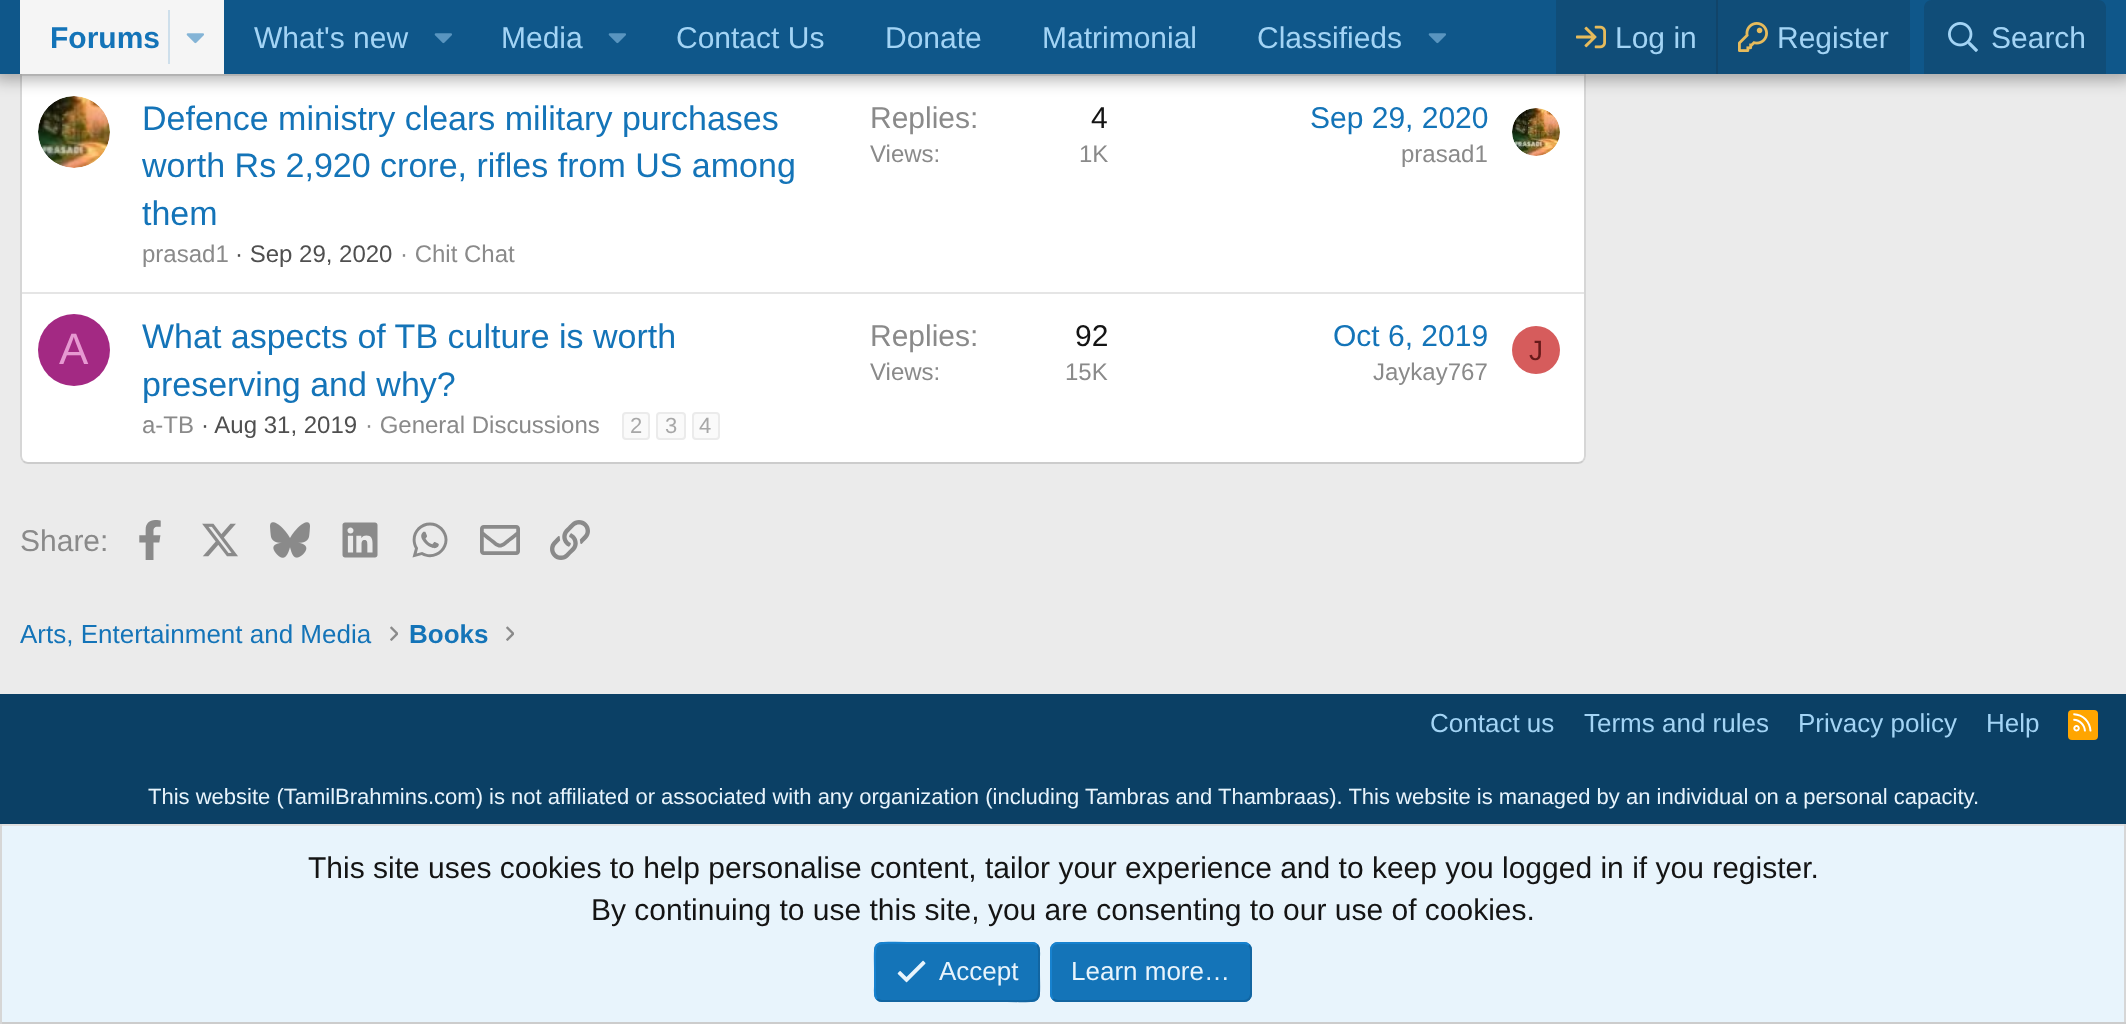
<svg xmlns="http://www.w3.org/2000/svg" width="2126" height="1024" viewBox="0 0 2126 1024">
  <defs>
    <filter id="blur1" x="-50%" y="-200%" width="200%" height="500%"><feGaussianBlur stdDeviation="8"/></filter>
  </defs>
  <rect width="100%" height="100%" fill="#ebebeb"/>
  <rect x="20" y="-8" width="1566" height="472" rx="8" fill="#ffffff"/>
  <path d="M1583-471C1584.5-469.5 1585-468 1585-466V456C1585 458 1584.5 459.5 1583 461" fill="none" stroke="#d6d6d6" stroke-width="2"/>
  <path d="M1583 461C1581.5 462.5 1580 463 1578 463H28C26 463 24.5 462.5 23 461" fill="none" stroke="#cccccc" stroke-width="2"/>
  <path d="M23 461C21.5 459.5 21 458 21 456V-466C21-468 21.5-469.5 23-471" fill="none" stroke="#d6d6d6" stroke-width="2"/>
  <rect x="22" y="74" width="1562" height="2" fill="#e5e5e5"/>
  <image x="38" y="96" width="72" height="72" href="img6.png"/>
  <rect x="-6" y="-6" width="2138" height="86" fill="#000000" fill-opacity="0.3" filter="url(#blur1)"/>
  <rect x="0" y="0" width="2126" height="74" fill="#0f578a"/>
  <rect x="20" y="0" width="204" height="74" fill="#f5f5f5"/>
  <text x="50" y="48" font-family="Liberation Sans" font-size="30" font-weight="bold" fill="#1474b8">Forums</text>
  <rect x="168" y="10" width="2" height="54" fill="#cedfeb"/>
  <image x="186" y="33" width="18" height="11" href="img1.png"/>
  <text x="254" y="48" font-family="Liberation Sans" font-size="30" fill="#a3d4f5">What's new</text>
  <image x="434" y="33" width="18" height="11" href="img2.png"/>
  <text x="501" y="48" font-family="Liberation Sans" font-size="30" fill="#a3d4f5">Media</text>
  <image x="608" y="33" width="18" height="11" href="img2.png"/>
  <text x="676" y="48" font-family="Liberation Sans" font-size="30" fill="#a3d4f5">Contact Us</text>
  <text x="885" y="48" font-family="Liberation Sans" font-size="30" fill="#a3d4f5">Donate</text>
  <text x="1042" y="48" font-family="Liberation Sans" font-size="30" fill="#a3d4f5">Matrimonial</text>
  <text x="1257" y="48" font-family="Liberation Sans" font-size="30" fill="#a3d4f5">Classifieds</text>
  <image x="1428" y="33" width="18" height="11" href="img2.png"/>
  <rect x="1556" y="0" width="354" height="74" fill="#104d78"/>
  <image x="1576" y="25" width="30" height="24" href="img3.png"/>
  <text x="1615" y="48" font-family="Liberation Sans" font-size="30" fill="#a3d4f5">Log in</text>
  <rect x="1716" y="0" width="2" height="74" fill="#114469"/>
  <image x="1738" y="22" width="30" height="30" href="img4.png"/>
  <text x="1777" y="48" font-family="Liberation Sans" font-size="30" fill="#a3d4f5">Register</text>
  <path d="M1932 0H2098C2102.5 0 2106 3.5 2106 8V74H1924V8C1924 3.5 1927.5 0 1932 0Z" fill="#104d78"/>
  <image x="1948" y="22" width="30" height="30" href="img5.png"/>
  <text x="1991" y="48" font-family="Liberation Sans" font-size="30" fill="#a3d4f5">Search</text>
  <text x="142" y="130" font-family="Liberation Sans" font-size="34" fill="#1474b8">Defence ministry clears military purchases</text>
  <text x="142" y="177" font-family="Liberation Sans" font-size="34" fill="#1474b8">worth Rs 2,920 crore, rifles from US among</text>
  <text x="142" y="225" font-family="Liberation Sans" font-size="34" fill="#1474b8">them</text>
  <text x="142" y="262" font-family="Liberation Sans" font-size="24" fill="#8a8a8a">prasad1</text>
  <text x="235" y="262" font-family="Liberation Sans" font-size="24" fill="#4f4f4f">· Sep 29, 2020</text>
  <text x="400" y="262" font-family="Liberation Sans" font-size="24" fill="#8a8a8a">· Chit Chat</text>
  <text x="870" y="128" font-family="Liberation Sans" font-size="30" fill="#8a8a8a">Replies:</text>
  <text x="1091" y="128" font-family="Liberation Sans" font-size="30" fill="#141414">4</text>
  <text x="870" y="162" font-family="Liberation Sans" font-size="24" fill="#8a8a8a">Views:</text>
  <text x="1079" y="162" font-family="Liberation Sans" font-size="24" fill="#8a8a8a">1K</text>
  <text x="1310" y="128" font-family="Liberation Sans" font-size="30" fill="#1474b8">Sep 29, 2020</text>
  <text x="1401" y="162" font-family="Liberation Sans" font-size="24" fill="#8a8a8a">prasad1</text>
  <image x="1512" y="108" width="48" height="48" href="img7.png"/>
  <rect x="22" y="292" width="1562" height="2" fill="#e5e5e5"/>
  <circle cx="74" cy="350" r="36" fill="#a32983"/>
  <text x="59" y="364" font-family="Liberation Sans" font-size="44" fill="#e699d1">A</text>
  <text x="142" y="348" font-family="Liberation Sans" font-size="34" fill="#1474b8">What aspects of TB culture is worth</text>
  <text x="142" y="396" font-family="Liberation Sans" font-size="34" fill="#1474b8">preserving and why?</text>
  <text x="142" y="433" font-family="Liberation Sans" font-size="24" fill="#8a8a8a">a-TB</text>
  <text x="201" y="433" font-family="Liberation Sans" font-size="24" fill="#4f4f4f">· Aug 31, 2019</text>
  <text x="365" y="433" font-family="Liberation Sans" font-size="24" fill="#8a8a8a">· General Discussions</text>
  <rect x="623" y="413" width="26" height="26" rx="3" fill="#fafafa" stroke="#ebebeb" stroke-width="2"/>
  <text x="630" y="433" font-family="Liberation Sans" font-size="22" fill="#a7a7a7">2</text>
  <rect x="657" y="413" width="28" height="26" rx="3" fill="#fafafa" stroke="#ebebeb" stroke-width="2"/>
  <text x="665" y="433" font-family="Liberation Sans" font-size="22" fill="#a7a7a7">3</text>
  <rect x="693" y="413" width="26" height="26" rx="3" fill="#fafafa" stroke="#ebebeb" stroke-width="2"/>
  <text x="699" y="433" font-family="Liberation Sans" font-size="22" fill="#a7a7a7">4</text>
  <text x="870" y="346" font-family="Liberation Sans" font-size="30" fill="#8a8a8a">Replies:</text>
  <text x="1075" y="346" font-family="Liberation Sans" font-size="30" fill="#141414">92</text>
  <text x="870" y="380" font-family="Liberation Sans" font-size="24" fill="#8a8a8a">Views:</text>
  <text x="1065" y="380" font-family="Liberation Sans" font-size="24" fill="#8a8a8a">15K</text>
  <text x="1333" y="346" font-family="Liberation Sans" font-size="30" fill="#1474b8">Oct 6, 2019</text>
  <text x="1373" y="380" font-family="Liberation Sans" font-size="24" fill="#8a8a8a">Jaykay767</text>
  <circle cx="1536" cy="350" r="24" fill="#d65c5c"/>
  <text x="1529" y="360" font-family="Liberation Sans" font-size="28" fill="#661a1a">J</text>
  <text x="20" y="551" font-family="Liberation Sans" font-size="30" fill="#8a8a8a">Share:</text>
  <image x="139" y="520" width="22" height="40" href="img8.png"/>
  <image x="202" y="523" width="36" height="34" href="img9.png"/>
  <image x="270" y="522" width="40" height="36" href="img10.png"/>
  <image x="342" y="522" width="36" height="36" href="img11.png"/>
  <image x="412" y="522" width="36" height="36" href="img12.png"/>
  <image x="480" y="525" width="40" height="30" href="img13.png"/>
  <image x="550" y="520" width="40" height="40" href="img14.png"/>
  <text x="20" y="643" font-family="Liberation Sans" font-size="26" fill="#1474b8">Arts, Entertainment and Media</text>
  <image x="390" y="626" width="8" height="15" href="img15.png"/>
  <text x="409" y="643" font-family="Liberation Sans" font-size="26" font-weight="bold" fill="#1474b8">Books</text>
  <image x="506" y="626" width="8" height="15" href="img15.png"/>
  <rect x="0" y="694" width="2126" height="130" fill="#0b4065"/>
  <text x="1430" y="732" font-family="Liberation Sans" font-size="26" fill="#a3d4f5">Contact us</text>
  <text x="1584" y="732" font-family="Liberation Sans" font-size="26" fill="#a3d4f5">Terms and rules</text>
  <text x="1798" y="732" font-family="Liberation Sans" font-size="26" fill="#a3d4f5">Privacy policy</text>
  <text x="1986" y="732" font-family="Liberation Sans" font-size="26" fill="#a3d4f5">Help</text>
  <rect x="2068" y="710" width="30" height="30" rx="4" fill="#ffa500"/>
  <image x="2073" y="713" width="19" height="19" href="img16.png"/>
  <text x="148" y="804" font-family="Liberation Sans" font-size="22" fill="#e8f4fc">This website (TamilBrahmins.com) is not affiliated or associated with any organization (including Tambras and Thambraas). This website is managed by an individual on a personal capacity.</text>
  <rect x="2" y="826" width="2122" height="196" fill="#e8f4fc"/>
  <rect x="0" y="824" width="2126" height="2" fill="#e0e0e0"/>
  <rect x="2124" y="824" width="2" height="200" fill="#d6d6d6"/>
  <rect x="0" y="1022" width="2126" height="2" fill="#cccccc"/>
  <rect x="0" y="824" width="2" height="200" fill="#d6d6d6"/>
  <text x="308" y="878" font-family="Liberation Sans" font-size="30" fill="#141414">This site uses cookies to help personalise content, tailor your experience and to keep you logged in if you register.</text>
  <text x="591" y="920" font-family="Liberation Sans" font-size="30" fill="#141414">By continuing to use this site, you are consenting to our use of cookies.</text>
  <rect x="874" y="942" width="166" height="60" rx="8" fill="#1474b8"/>
  <path d="M1037 945C1040 948 1039 953.5 1039 957.5V972C1039 1006 1043.5 1001 1007 1001H882C880 1001 878.5 1000.5 877 999" fill="none" stroke="#1265a1" stroke-width="2"/>
  <path d="M877 999C874 996 875 990.5 875 986.5V972C875 938 870.5 943 907 943H1032C1034 943 1035.5 943.5 1037 945" fill="none" stroke="#1782cf" stroke-width="2"/>
  <image x="897" y="960" width="29" height="23" href="img17.png"/>
  <text x="939" y="980" font-family="Liberation Sans" font-size="26" fill="#e8f4fc">Accept</text>
  <rect x="1050" y="942" width="202" height="60" rx="8" fill="#1474b8"/>
  <path d="M1249 945C1250.5 946.5 1251 948 1251 950V994C1251 996 1250.5 997.5 1249 999C1247.5 1000.5 1246 1001 1244 1001H1058C1056 1001 1054.5 1000.5 1053 999" fill="none" stroke="#1265a1" stroke-width="2"/>
  <path d="M1053 999C1051.5 997.5 1051 996 1051 994V950C1051 948 1051.5 946.5 1053 945C1054.5 943.5 1056 943 1058 943H1244C1246 943 1247.5 943.5 1249 945" fill="none" stroke="#1782cf" stroke-width="2"/>
  <text x="1071" y="980" font-family="Liberation Sans" font-size="26" fill="#e8f4fc">Learn more…</text>
</svg>
